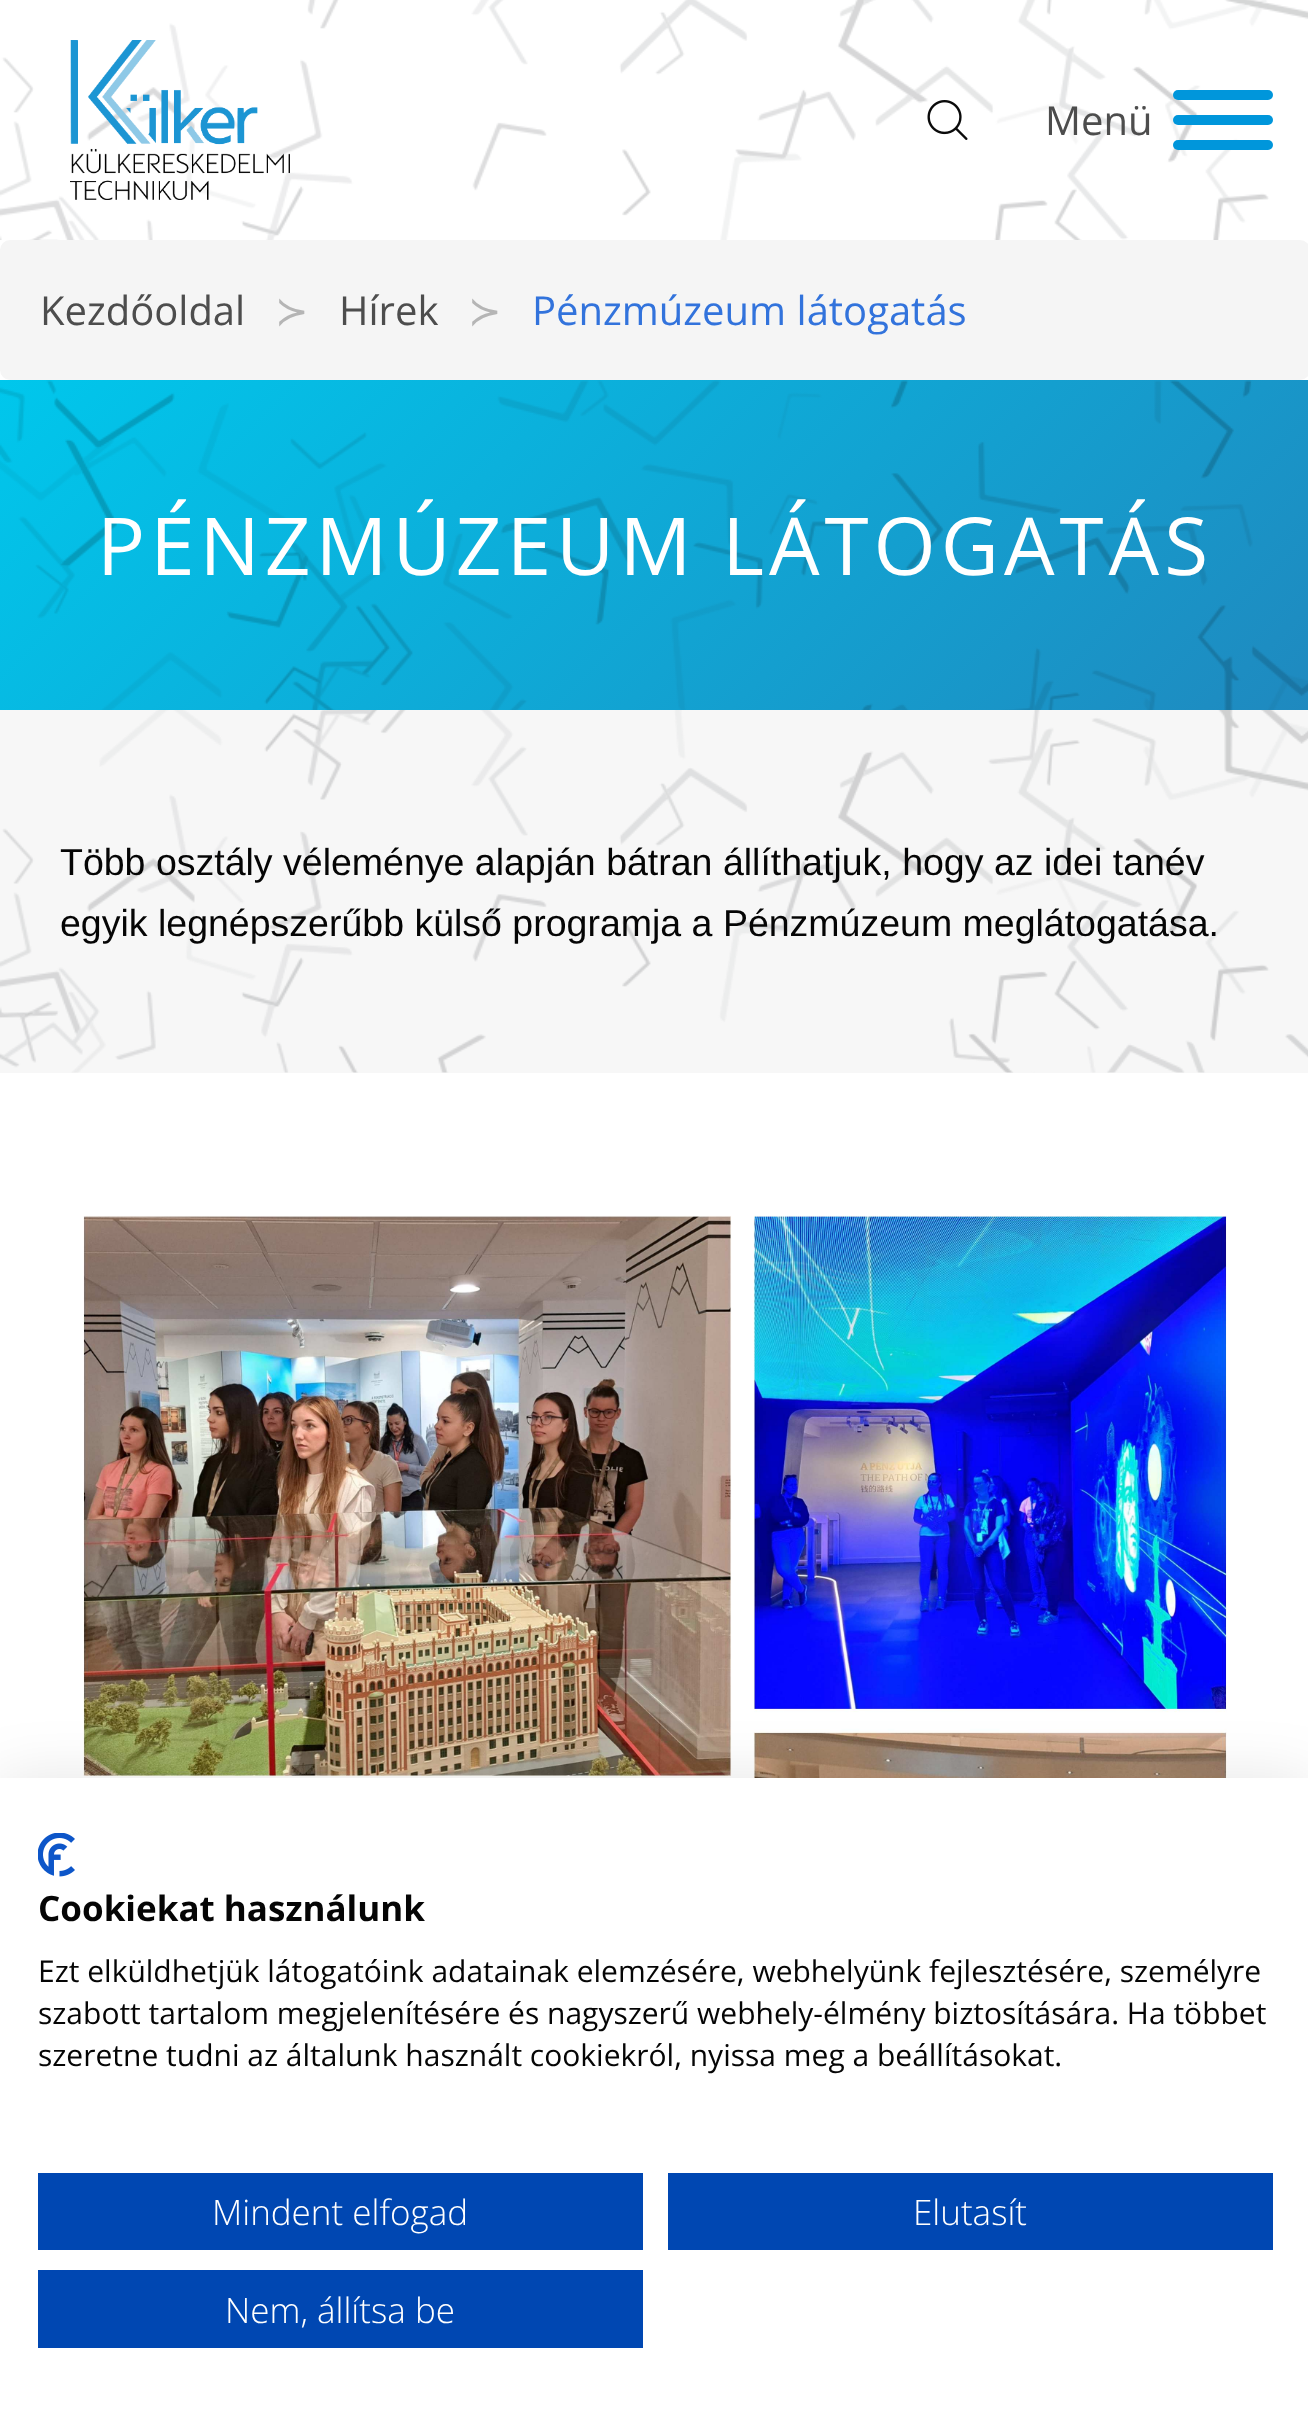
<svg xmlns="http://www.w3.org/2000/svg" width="1308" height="2414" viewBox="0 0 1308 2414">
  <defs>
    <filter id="blur1" x="-50%" y="-200%" width="200%" height="500%"><feGaussianBlur stdDeviation="30"/></filter>
  </defs>
  <rect width="100%" height="100%" fill="#ffffff"/>
  <image x="0" y="0" width="1308" height="240" href="img1.png"/>
  <image x="70" y="40" width="220" height="160" href="img2.png"/>
  <image x="927" y="100" width="41" height="40" href="img3.png"/>
  <text x="1045" y="135" font-family="Open Sans" font-size="40" fill="#4d4d4d">Menü</text>
  <rect x="1173" y="140" width="100" height="10" rx="5" fill="#0096db"/>
  <rect x="1173" y="90" width="100" height="10" rx="5" fill="#0096db"/>
  <rect x="1173" y="115" width="100" height="10" rx="5" fill="#0096db"/>
  <rect x="0" y="240" width="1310" height="140" rx="10" fill="#f5f5f5"/>
  <text x="40" y="325" font-family="Open Sans" font-size="40" fill="#4d4d4d">Kezdőoldal</text>
  <text x="275" y="325" font-family="DejaVu Sans" font-size="40" fill="#b5b5b5">≻</text>
  <text x="339" y="325" font-family="Open Sans" font-size="40" fill="#4d4d4d">Hírek</text>
  <text x="468" y="325" font-family="DejaVu Sans" font-size="40" fill="#b5b5b5">≻</text>
  <text x="532" y="325" font-family="Open Sans" font-size="40" fill="#3273dc">Pénzmúzeum látogatás</text>
  <image x="0" y="380" width="1308" height="330" href="img4.png"/>
  <text x="97" y="575" font-family="Open Sans" font-size="80" letter-spacing="5" fill="#ffffff">PÉNZMÚZEUM LÁTOGATÁS</text>
  <rect x="0" y="710" width="1308" height="363" fill="#f7f7f7"/>
  <image x="0" y="710" width="1308" height="363" href="img5.png"/>
  <text x="60" y="875" font-family="Liberation Sans" font-size="37.5" fill="#050505">Több osztály véleménye alapján bátran állíthatjuk, hogy az idei tanév</text>
  <text x="60" y="936" font-family="Liberation Sans" font-size="37.5" fill="#050505">egyik legnépszerűbb külső programja a Pénzmúzeum meglátogatása.</text>
  <image x="83" y="1215" width="1144" height="563" href="img6.png"/>
  <rect x="0" y="1778" width="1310" height="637" fill="#000000" fill-opacity="0.1" filter="url(#blur1)"/>
  <rect x="0" y="1778" width="1308" height="636" fill="#ffffff"/>
  <image x="38" y="1833" width="37" height="44" href="img7.png"/>
  <text x="38" y="1921" font-family="Open Sans" font-size="35" font-weight="bold" fill="#050505">Cookiekat használunk</text>
  <text x="38" y="1982" font-family="Open Sans" font-size="30" fill="#050505">Ezt elküldhetjük látogatóink adatainak elemzésére, webhelyünk fejlesztésére, személyre</text>
  <text x="38" y="2024" font-family="Open Sans" font-size="30" fill="#050505">szabott tartalom megjelenítésére és nagyszerű webhely-élmény biztosítására. Ha többet</text>
  <text x="38" y="2066" font-family="Open Sans" font-size="30" fill="#050505">szeretne tudni az általunk használt cookiekról, nyissa meg a beállításokat.</text>
  <rect x="38" y="2173" width="605" height="77" fill="#0047b2"/>
  <text x="212" y="2225" font-family="Open Sans" font-size="35" font-weight="300" fill="#ffffff">Mindent elfogad</text>
  <rect x="668" y="2173" width="605" height="77" fill="#0047b2"/>
  <text x="913" y="2225" font-family="Open Sans" font-size="35" font-weight="300" fill="#ffffff">Elutasít</text>
  <rect x="38" y="2270" width="605" height="78" fill="#0047b2"/>
  <text x="225" y="2323" font-family="Open Sans" font-size="35" font-weight="300" fill="#ffffff">Nem, állítsa be</text>
</svg>
